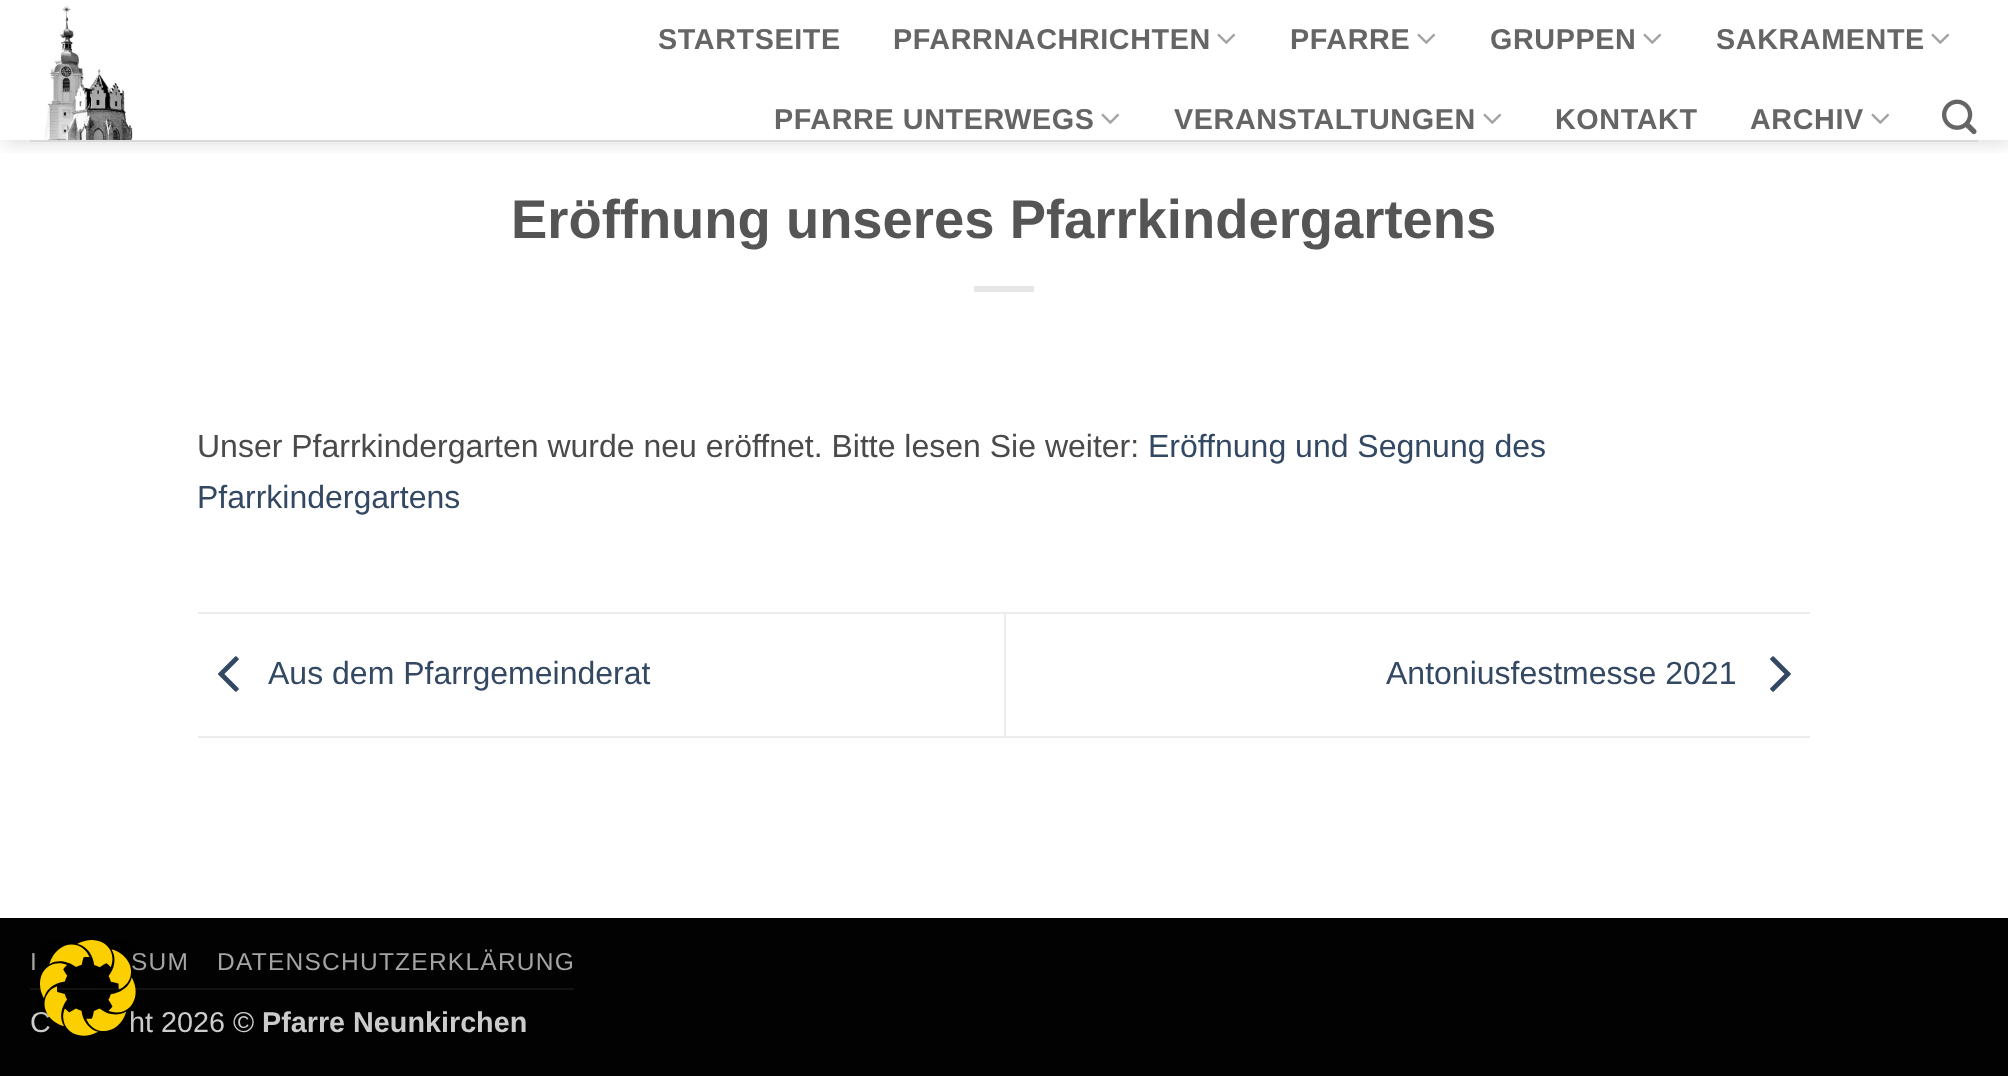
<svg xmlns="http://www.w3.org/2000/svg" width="2008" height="1076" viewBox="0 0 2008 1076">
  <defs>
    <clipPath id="clip1"><rect x="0" y="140" width="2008" height="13"/></clipPath>
    <filter id="blur1" x="-50%" y="-200%" width="200%" height="500%"><feGaussianBlur stdDeviation="10"/></filter>
  </defs>
  <rect width="100%" height="100%" fill="#ffffff"/>
  <g clip-path="url(#clip1)">
    <rect x="2" y="2" width="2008" height="140" fill="#000000" fill-opacity="0.15" filter="url(#blur1)"/>
  </g>
  <image x="44" y="5" width="89" height="135" href="img1.png"/>
  <text x="658" y="49" font-family="Liberation Sans" font-size="28.75" font-weight="bold" letter-spacing="0.6" fill="#656565">STARTSEITE</text>
  <text x="893" y="49" font-family="Liberation Sans" font-size="28.75" font-weight="bold" letter-spacing="0.6" fill="#656565">PFARRNACHRICHTEN</text>
  <image x="1217" y="33" width="19" height="11" href="img2.png"/>
  <text x="1290" y="49" font-family="Liberation Sans" font-size="28.75" font-weight="bold" letter-spacing="0.6" fill="#656565">PFARRE</text>
  <image x="1417" y="33" width="19" height="11" href="img2.png"/>
  <text x="1490" y="49" font-family="Liberation Sans" font-size="28.75" font-weight="bold" letter-spacing="0.6" fill="#656565">GRUPPEN</text>
  <image x="1643" y="33" width="19" height="11" href="img2.png"/>
  <text x="1716" y="49" font-family="Liberation Sans" font-size="28.75" font-weight="bold" letter-spacing="0.6" fill="#656565">SAKRAMENTE</text>
  <image x="1931" y="33" width="19" height="11" href="img2.png"/>
  <text x="774" y="129" font-family="Liberation Sans" font-size="28.75" font-weight="bold" letter-spacing="0.6" fill="#656565">PFARRE UNTERWEGS</text>
  <image x="1101" y="113" width="19" height="11" href="img2.png"/>
  <text x="1174" y="129" font-family="Liberation Sans" font-size="28.75" font-weight="bold" letter-spacing="0.6" fill="#656565">VERANSTALTUNGEN</text>
  <image x="1483" y="113" width="19" height="11" href="img2.png"/>
  <text x="1555" y="129" font-family="Liberation Sans" font-size="28.75" font-weight="bold" letter-spacing="0.6" fill="#656565">KONTAKT</text>
  <text x="1750" y="129" font-family="Liberation Sans" font-size="28.75" font-weight="bold" letter-spacing="0.6" fill="#656565">ARCHIV</text>
  <image x="1871" y="113" width="19" height="11" href="img2.png"/>
  <image x="1942" y="99" width="35" height="36" href="img3.png"/>
  <rect x="30" y="140" width="1948" height="2" fill="#dadada"/>
  <text x="511" y="238" font-family="Liberation Sans" font-size="54.4" font-weight="bold" fill="#555555">Eröffnung unseres Pfarrkindergartens</text>
  <rect x="974" y="286" width="60" height="6" fill="#e6e6e6"/>
  <text x="197" y="457" font-family="Liberation Sans" font-size="32" fill="#4a4a4a">Unser Pfarrkindergarten wurde neu eröffnet. Bitte lesen Sie weiter:</text>
  <text x="1148" y="457" font-family="Liberation Sans" font-size="32" fill="#334862">Eröffnung und Segnung des</text>
  <text x="197" y="508" font-family="Liberation Sans" font-size="32" fill="#334862">Pfarrkindergartens</text>
  <rect x="198" y="612" width="1612" height="2" fill="#ececec"/>
  <rect x="198" y="736" width="1612" height="2" fill="#ececec"/>
  <image x="218" y="656" width="21" height="36" href="img4.png"/>
  <text x="268" y="684" font-family="Liberation Sans" font-size="32" fill="#334862">Aus dem Pfarrgemeinderat</text>
  <rect x="1004" y="614" width="2" height="122" fill="#ececec"/>
  <text x="1386" y="684" font-family="Liberation Sans" font-size="32" fill="#334862">Antoniusfestmesse 2021</text>
  <image x="1770" y="656" width="21" height="36" href="img5.png"/>
  <rect x="0" y="918" width="2008" height="158" fill="#020202"/>
  <rect x="30" y="988" width="544" height="2" fill="#121212"/>
  <text x="30" y="970" font-family="Liberation Sans" font-size="24.5" letter-spacing="1.25" fill="#a4a4a4">I</text>
  <text x="131" y="970" font-family="Liberation Sans" font-size="24.5" letter-spacing="1.25" fill="#a4a4a4">SUM</text>
  <text x="217" y="970" font-family="Liberation Sans" font-size="24.5" letter-spacing="1.25" fill="#a4a4a4">DATENSCHUTZERKLÄRUNG</text>
  <text x="30" y="1032" font-family="Liberation Sans" font-size="28.75" fill="#cccccc">C</text>
  <text x="129" y="1032" font-family="Liberation Sans" font-size="28.75" fill="#cccccc">ht 2026 ©</text>
  <text x="262" y="1032" font-family="Liberation Sans" font-size="28.75" font-weight="bold" fill="#cccccc">Pfarre Neunkirchen</text>
  <image x="38" y="940" width="101" height="98" href="img6.png"/>
</svg>
